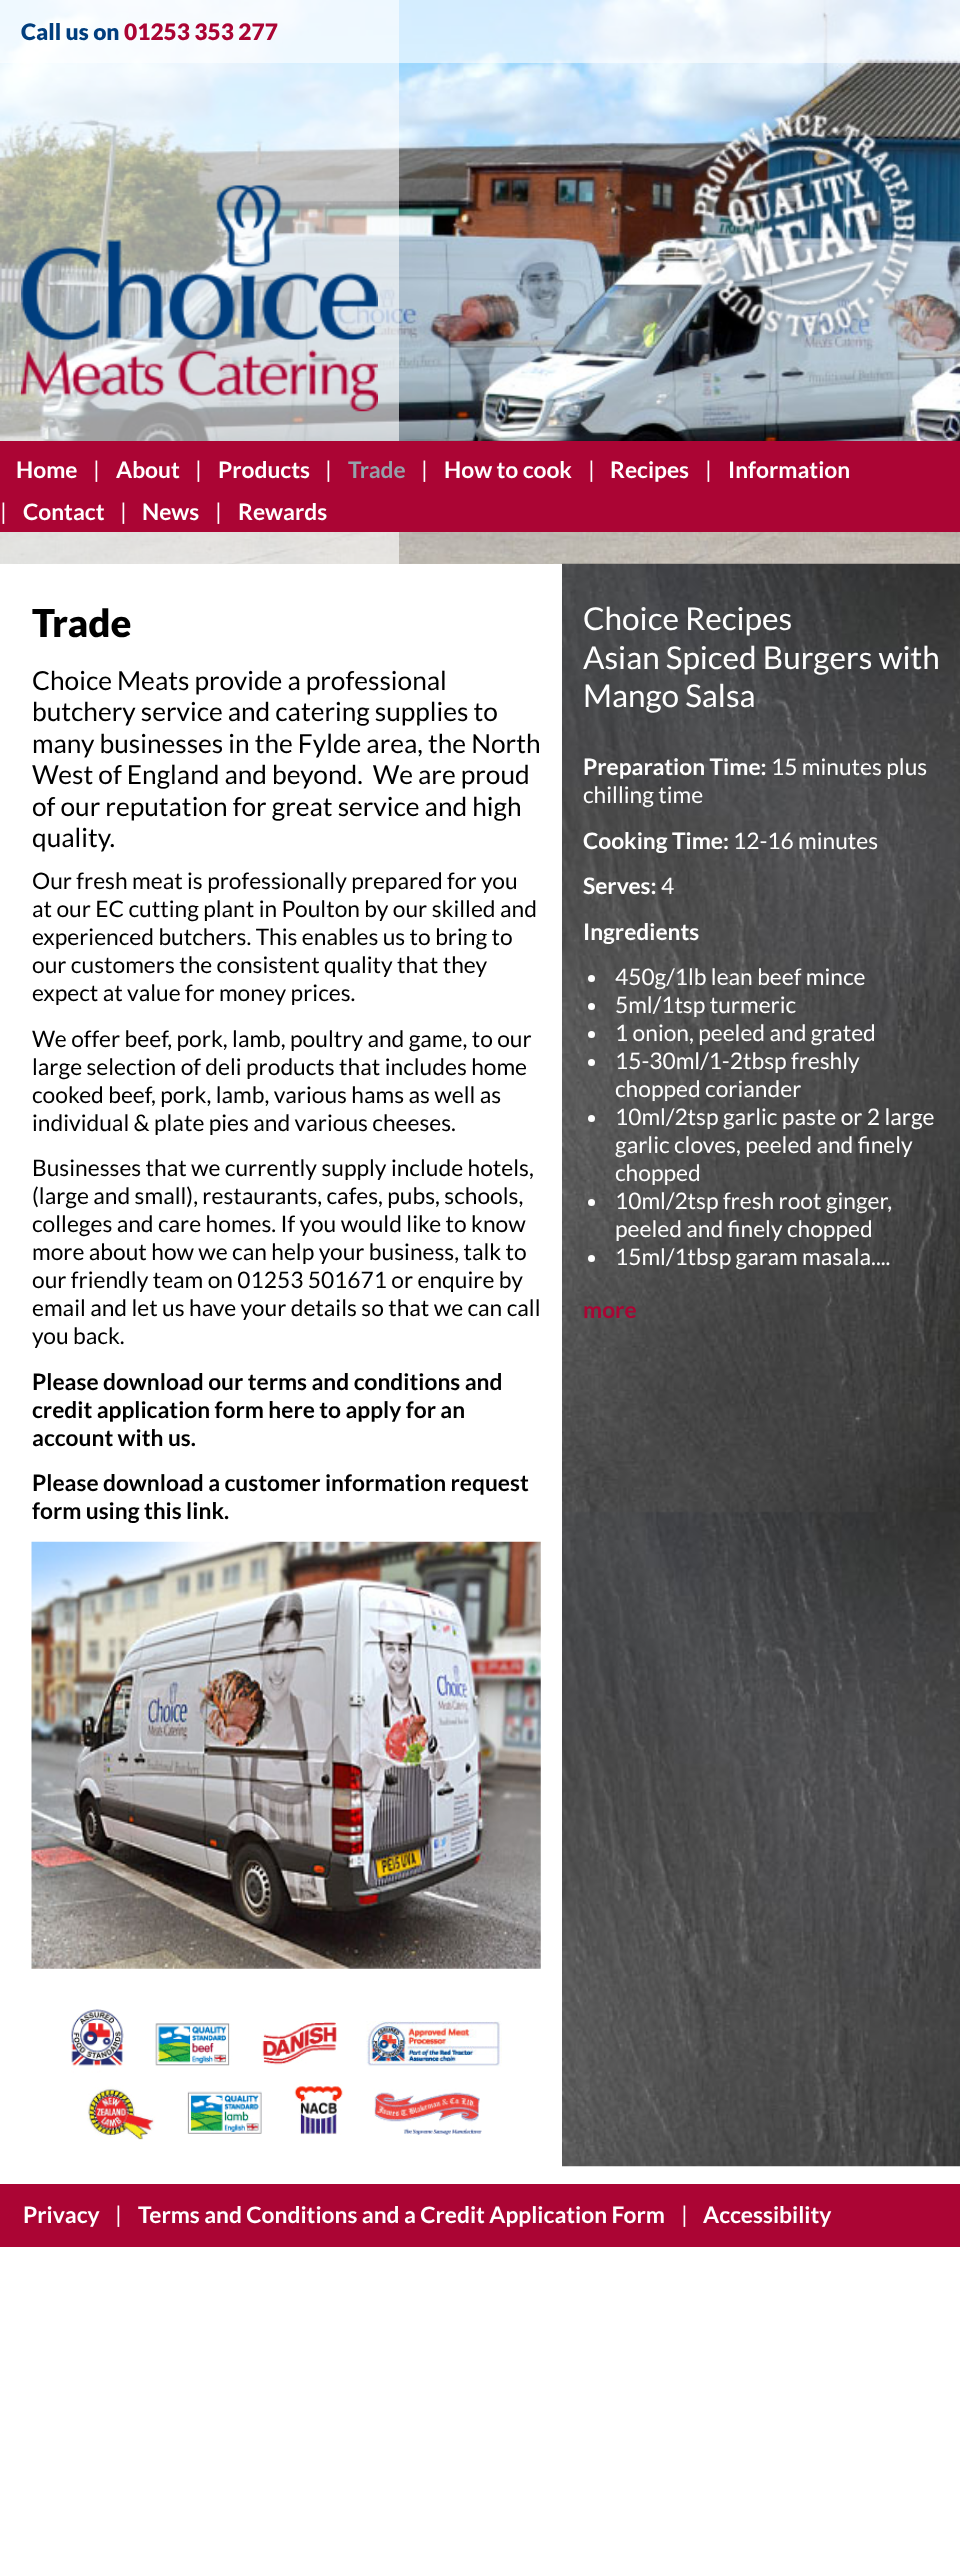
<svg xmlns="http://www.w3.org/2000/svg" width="960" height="2574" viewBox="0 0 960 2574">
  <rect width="100%" height="100%" fill="#ffffff"/>
  <image x="0" y="0" width="960" height="564" href="img1.png"/>
  <rect x="0" y="0" width="960" height="63" fill="#ffffff" fill-opacity="0.6"/>
  <rect x="0" y="0" width="399" height="63" fill="#ffffff" fill-opacity="0.6"/>
  <text x="21" y="40" font-family="Lato" font-size="22.75" font-weight="900" fill="#003e7e">Call us on</text>
  <text x="124" y="40" font-family="Lato" font-size="22.75" font-weight="900" fill="#ab0534">01253 353 277</text>
  <rect x="0" y="63" width="399" height="378" fill="#ffffff" fill-opacity="0.6"/>
  <image x="21" y="185" width="357" height="227" href="img2.png"/>
  <rect x="0" y="441" width="960" height="91" fill="#ab0534"/>
  <text x="16" y="478" font-family="Lato" font-size="22.75" font-weight="bold" fill="#ffffff">Home</text>
  <text x="93" y="478" font-family="Lato" font-size="22.75" fill="#ffffff">|</text>
  <text x="116" y="478" font-family="Lato" font-size="22.75" font-weight="bold" fill="#ffffff">About</text>
  <text x="195" y="478" font-family="Lato" font-size="22.75" fill="#ffffff">|</text>
  <text x="218" y="478" font-family="Lato" font-size="22.75" font-weight="bold" fill="#ffffff">Products</text>
  <text x="325" y="478" font-family="Lato" font-size="22.75" fill="#ffffff">|</text>
  <text x="348" y="478" font-family="Lato" font-size="22.75" font-weight="bold" fill="#95a1aa">Trade</text>
  <text x="421" y="478" font-family="Lato" font-size="22.75" fill="#ffffff">|</text>
  <text x="444" y="478" font-family="Lato" font-size="22.75" font-weight="bold" fill="#ffffff">How to cook</text>
  <text x="588" y="478" font-family="Lato" font-size="22.75" fill="#ffffff">|</text>
  <text x="610" y="478" font-family="Lato" font-size="22.75" font-weight="bold" fill="#ffffff">Recipes</text>
  <text x="705" y="478" font-family="Lato" font-size="22.75" fill="#ffffff">|</text>
  <text x="728" y="478" font-family="Lato" font-size="22.75" font-weight="bold" fill="#ffffff">Information</text>
  <text x="0" y="520" font-family="Lato" font-size="22.75" fill="#ffffff">|</text>
  <text x="23" y="520" font-family="Lato" font-size="22.75" font-weight="bold" fill="#ffffff">Contact</text>
  <text x="120" y="520" font-family="Lato" font-size="22.75" fill="#ffffff">|</text>
  <text x="142" y="520" font-family="Lato" font-size="22.75" font-weight="bold" fill="#ffffff">News</text>
  <text x="215" y="520" font-family="Lato" font-size="22.75" fill="#ffffff">|</text>
  <text x="238" y="520" font-family="Lato" font-size="22.75" font-weight="bold" fill="#ffffff">Rewards</text>
  <rect x="0" y="532" width="399" height="32" fill="#ffffff" fill-opacity="0.6"/>
  <image x="561" y="563" width="399" height="1604" href="img3.png"/>
  <rect x="561" y="564" width="1" height="1603" fill="#ffffff"/>
  <text x="32" y="637" font-family="Lato" font-size="38.5" font-weight="900" fill="#000000">Trade</text>
  <text x="32" y="690" font-family="Lato" font-size="26.25" fill="#000000">Choice Meats provide a professional</text>
  <text x="32" y="721" font-family="Lato" font-size="26.25" fill="#000000">butchery service and catering supplies to</text>
  <text x="32" y="753" font-family="Lato" font-size="26.25" fill="#000000">many businesses in the Fylde area, the North</text>
  <text x="32" y="784" font-family="Lato" font-size="26.25" fill="#000000" xml:space="preserve">West of England and beyond.  We are proud</text>
  <text x="32" y="816" font-family="Lato" font-size="26.25" fill="#000000">of our reputation for great service and high</text>
  <text x="32" y="847" font-family="Lato" font-size="26.25" fill="#000000">quality.</text>
  <text x="32" y="889" font-family="Lato" font-size="22.75" fill="#000000">Our fresh meat is professionally prepared for you</text>
  <text x="32" y="917" font-family="Lato" font-size="22.75" fill="#000000">at our EC cutting plant in Poulton by our skilled and</text>
  <text x="32" y="945" font-family="Lato" font-size="22.75" fill="#000000">experienced butchers. This enables us to bring to</text>
  <text x="32" y="973" font-family="Lato" font-size="22.75" fill="#000000">our customers the consistent quality that they</text>
  <text x="32" y="1001" font-family="Lato" font-size="22.75" fill="#000000">expect at value for money prices.</text>
  <text x="32" y="1047" font-family="Lato" font-size="22.75" fill="#000000">We offer beef, pork, lamb, poultry and game, to our</text>
  <text x="32" y="1075" font-family="Lato" font-size="22.75" fill="#000000">large selection of deli products that includes home</text>
  <text x="32" y="1103" font-family="Lato" font-size="22.75" fill="#000000">cooked beef, pork, lamb, various hams as well as</text>
  <text x="32" y="1131" font-family="Lato" font-size="22.75" fill="#000000">individual &amp; plate pies and various cheeses.</text>
  <text x="32" y="1176" font-family="Lato" font-size="22.75" fill="#000000">Businesses that we currently supply include hotels,</text>
  <text x="32" y="1204" font-family="Lato" font-size="22.75" fill="#000000">(large and small), restaurants, cafes, pubs, schools,</text>
  <text x="32" y="1232" font-family="Lato" font-size="22.75" fill="#000000">colleges and care homes. If you would like to know</text>
  <text x="32" y="1260" font-family="Lato" font-size="22.75" fill="#000000">more about how we can help your business, talk to</text>
  <text x="32" y="1288" font-family="Lato" font-size="22.75" fill="#000000">our friendly team on 01253 501671 or enquire by</text>
  <text x="32" y="1316" font-family="Lato" font-size="22.75" fill="#000000">email and let us have your details so that we can call</text>
  <text x="32" y="1344" font-family="Lato" font-size="22.75" fill="#000000">you back.</text>
  <text x="32" y="1390" font-family="Lato" font-size="22.75" font-weight="bold" fill="#000000">Please download our terms and conditions and</text>
  <text x="32" y="1418" font-family="Lato" font-size="22.75" font-weight="bold" fill="#000000">credit application form here to apply for an</text>
  <text x="32" y="1446" font-family="Lato" font-size="22.75" font-weight="bold" fill="#000000">account with us.</text>
  <text x="32" y="1491" font-family="Lato" font-size="22.75" font-weight="bold" fill="#000000">Please download a customer information request</text>
  <text x="32" y="1519" font-family="Lato" font-size="22.75" font-weight="bold" fill="#000000">form using this link.</text>
  <image x="31" y="1541" width="510" height="428" href="img4.png"/>
  <image x="71" y="2009" width="431" height="131" href="img5.png"/>
  <text x="583" y="630" font-family="Lato" font-size="31.5" fill="#ffffff">Choice Recipes</text>
  <text x="583" y="669" font-family="Lato" font-size="31.5" fill="#ffffff">Asian Spiced Burgers with</text>
  <text x="583" y="707" font-family="Lato" font-size="31.5" fill="#ffffff">Mango Salsa</text>
  <text x="583" y="775" font-family="Lato" font-size="22.75" font-weight="bold" fill="#ffffff">Preparation Time:</text>
  <text x="771" y="775" font-family="Lato" font-size="22.75" fill="#ffffff">15 minutes plus</text>
  <text x="583" y="803" font-family="Lato" font-size="22.75" fill="#ffffff">chilling time</text>
  <text x="583" y="849" font-family="Lato" font-size="22.75" font-weight="bold" fill="#ffffff">Cooking Time:</text>
  <text x="733" y="849" font-family="Lato" font-size="22.75" fill="#ffffff">12-16 minutes</text>
  <text x="583" y="894" font-family="Lato" font-size="22.75" font-weight="bold" fill="#ffffff">Serves:</text>
  <text x="661" y="894" font-family="Lato" font-size="22.75" fill="#ffffff">4</text>
  <text x="583" y="940" font-family="Lato" font-size="22.75" font-weight="bold" fill="#ffffff">Ingredients</text>
  <circle cx="591.5" cy="978.5" r="3.5" fill="#ffffff"/>
  <text x="615" y="985" font-family="Lato" font-size="22.75" fill="#ffffff">450g/1lb lean beef mince</text>
  <circle cx="591.5" cy="1006.5" r="3.5" fill="#ffffff"/>
  <text x="615" y="1013" font-family="Lato" font-size="22.75" fill="#ffffff">5ml/1tsp turmeric</text>
  <circle cx="591.5" cy="1034.5" r="3.5" fill="#ffffff"/>
  <text x="615" y="1041" font-family="Lato" font-size="22.75" fill="#ffffff">1 onion, peeled and grated</text>
  <circle cx="591.5" cy="1062.5" r="3.5" fill="#ffffff"/>
  <text x="615" y="1069" font-family="Lato" font-size="22.75" fill="#ffffff">15-30ml/1-2tbsp freshly</text>
  <text x="615" y="1097" font-family="Lato" font-size="22.75" fill="#ffffff">chopped coriander</text>
  <circle cx="591.5" cy="1118.5" r="3.5" fill="#ffffff"/>
  <text x="615" y="1125" font-family="Lato" font-size="22.75" fill="#ffffff">10ml/2tsp garlic paste or 2 large</text>
  <text x="615" y="1153" font-family="Lato" font-size="22.75" fill="#ffffff">garlic cloves, peeled and finely</text>
  <text x="615" y="1181" font-family="Lato" font-size="22.75" fill="#ffffff">chopped</text>
  <circle cx="591.5" cy="1202.5" r="3.5" fill="#ffffff"/>
  <text x="615" y="1209" font-family="Lato" font-size="22.75" fill="#ffffff">10ml/2tsp fresh root ginger,</text>
  <text x="615" y="1237" font-family="Lato" font-size="22.75" fill="#ffffff">peeled and finely chopped</text>
  <circle cx="591.5" cy="1258.5" r="3.5" fill="#ffffff"/>
  <text x="615" y="1265" font-family="Lato" font-size="22.75" fill="#ffffff">15ml/1tbsp garam masala....</text>
  <text x="583" y="1318" font-family="Lato" font-size="22.75" font-weight="bold" fill="#ab0534">more</text>
  <rect x="0" y="2184" width="960" height="63" fill="#ab0534"/>
  <text x="23" y="2223" font-family="Lato" font-size="22.75" font-weight="bold" fill="#ffffff">Privacy</text>
  <text x="115" y="2223" font-family="Lato" font-size="22.75" fill="#ffffff">|</text>
  <text x="138" y="2223" font-family="Lato" font-size="22.75" font-weight="bold" fill="#ffffff">Terms and Conditions and a Credit Application Form</text>
  <text x="681" y="2223" font-family="Lato" font-size="22.75" fill="#ffffff">|</text>
  <text x="703" y="2223" font-family="Lato" font-size="22.75" font-weight="bold" fill="#ffffff">Accessibility</text>
  <image x="689" y="109" width="233" height="235" href="img6.png"/>
</svg>
